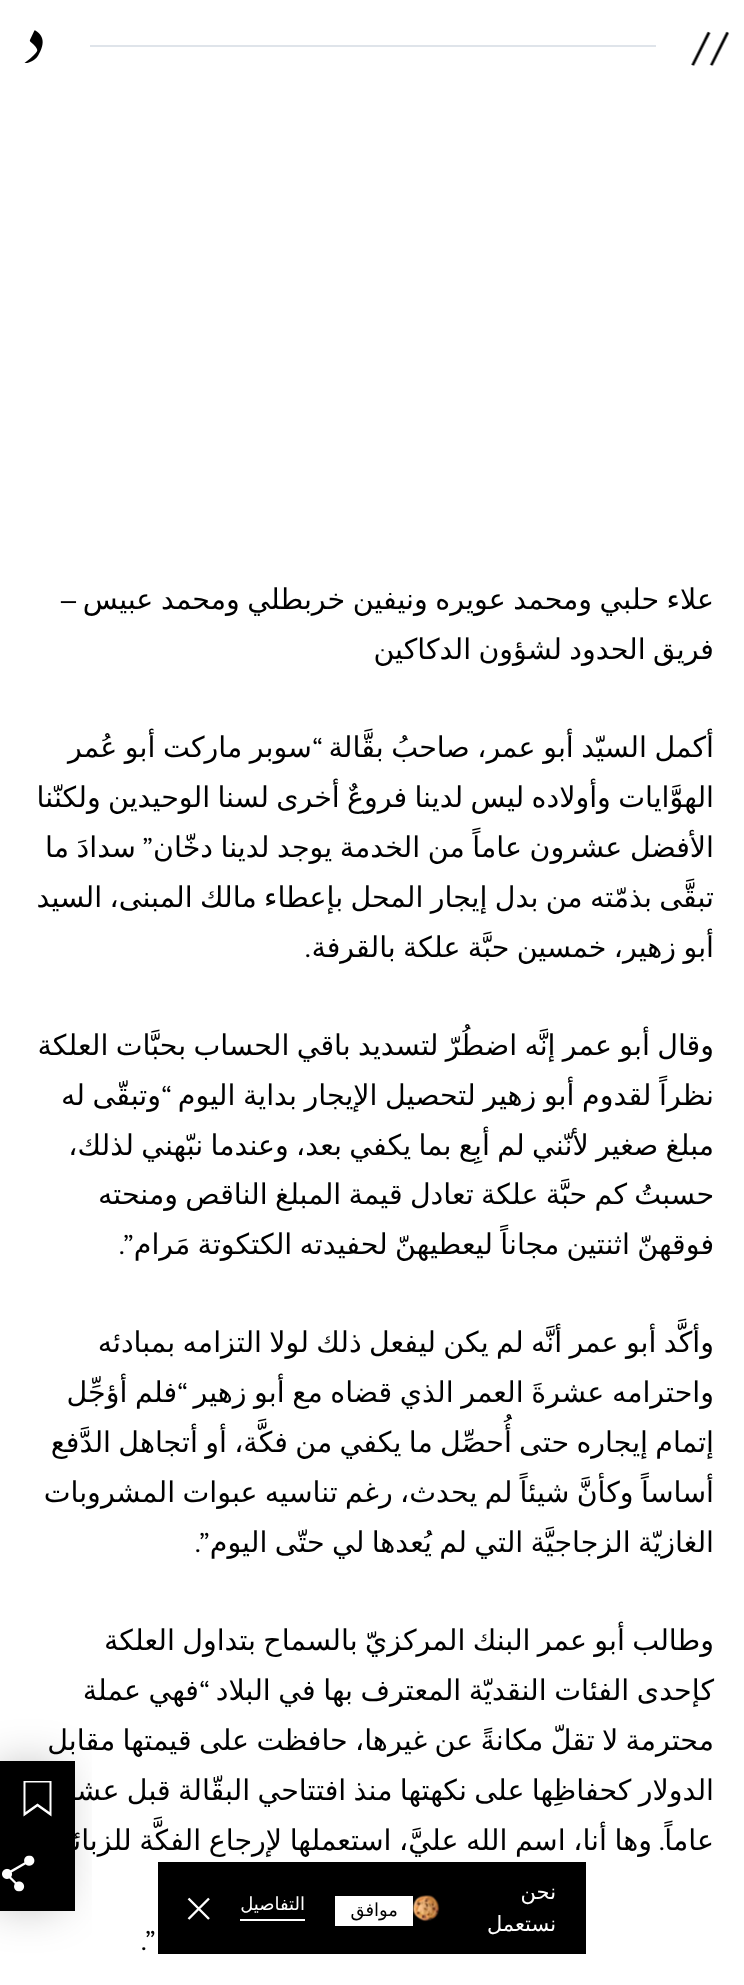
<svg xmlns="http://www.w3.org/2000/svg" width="744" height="1985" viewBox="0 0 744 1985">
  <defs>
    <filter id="blur1" x="-50%" y="-200%" width="200%" height="500%"><feGaussianBlur stdDeviation="22.5"/></filter>
    <clipPath id="clip1"><rect x="20" y="1781" width="36" height="36"/></clipPath>
  </defs>
  <rect width="100%" height="100%" fill="#ffffff"/>
  <image x="691" y="31" width="39" height="35" href="img1.png"/>
  <rect x="90" y="45" width="566" height="2" fill="#dfe4ea"/>
  <image x="24" y="30" width="19" height="33" href="img2.png"/>
  <text x="714" y="609" word-spacing="-1.5" font-family="DejaVu Sans" font-size="28.5" direction="rtl" fill="#000000">علاء حلبي ومحمد عويره ونيفين خربطلي ومحمد عبيس</text>
  <text x="77" y="609" font-family="Proxima Nova" font-size="28.5" direction="rtl" fill="#000000">–</text>
  <text x="714" y="659" word-spacing="-1.75" font-family="DejaVu Sans" font-size="28.5" direction="rtl" fill="#000000">فريق الحدود لشؤون الدكاكين</text>
  <text x="714" y="757" word-spacing="-1.5" font-family="DejaVu Sans" font-size="28.5" direction="rtl" fill="#000000">أكمل السيّد أبو عمر، صاحبُ بقَّالة</text>
  <text x="323" y="757" font-family="Proxima Nova" font-size="28.5" direction="rtl" fill="#000000">“</text>
  <text x="312" y="757" word-spacing="-1.5" font-family="DejaVu Sans" font-size="28.5" direction="rtl" fill="#000000">سوبر ماركت أبو عُمر</text>
  <text x="714" y="807" word-spacing="-1.75" font-family="DejaVu Sans" font-size="28.5" direction="rtl" fill="#000000">الهوَّايات وأولاده ليس لدينا فروعٌ أخرى لسنا الوحيدين ولكنّنا</text>
  <text x="714" y="857" word-spacing="-1.5" font-family="DejaVu Sans" font-size="28.5" direction="rtl" fill="#000000">الأفضل عشرون عاماً من الخدمة يوجد لدينا دخّان</text>
  <text x="153" y="857" font-family="Proxima Nova" font-size="28.5" direction="rtl" fill="#000000">”</text>
  <text x="136" y="857" word-spacing="-1.5" font-family="DejaVu Sans" font-size="28.5" direction="rtl" fill="#000000">سدادَ ما</text>
  <text x="714" y="907" word-spacing="-1.75" font-family="DejaVu Sans" font-size="28.5" direction="rtl" fill="#000000">تبقَّى بذمّته من بدل إيجار المحل بإعطاء مالك المبنى، السيد</text>
  <text x="714" y="957" word-spacing="-1.75" font-family="DejaVu Sans" font-size="28.5" direction="rtl" fill="#000000">أبو زهير، خمسين حبَّة علكة بالقرفة</text>
  <text x="311" y="957" font-family="Proxima Nova" font-size="28.5" direction="rtl" fill="#000000">.</text>
  <text x="714" y="1055" word-spacing="-1.75" font-family="DejaVu Sans" font-size="28.5" direction="rtl" fill="#000000">وقال أبو عمر إنَّه اضطُرّ لتسديد باقي الحساب بحبَّات العلكة</text>
  <text x="714" y="1105" word-spacing="-1.5" font-family="DejaVu Sans" font-size="28.5" direction="rtl" fill="#000000">نظراً لقدوم أبو زهير لتحصيل الإيجار بداية اليوم</text>
  <text x="172" y="1105" font-family="Proxima Nova" font-size="28.5" direction="rtl" fill="#000000">“</text>
  <text x="161" y="1105" word-spacing="-1.5" font-family="DejaVu Sans" font-size="28.5" direction="rtl" fill="#000000">وتبقّى له</text>
  <text x="714" y="1155" word-spacing="-1.75" font-family="DejaVu Sans" font-size="28.5" direction="rtl" fill="#000000">مبلغ صغير لأنّني لم أبِع بما يكفي بعد، وعندما نبّهني لذلك،</text>
  <text x="714" y="1204" word-spacing="-1.75" font-family="DejaVu Sans" font-size="28.5" direction="rtl" fill="#000000">حسبتُ كم حبَّة علكة تعادل قيمة المبلغ الناقص ومنحته</text>
  <text x="714" y="1254" word-spacing="-1.75" font-family="DejaVu Sans" font-size="28.5" direction="rtl" fill="#000000">فوقهنّ اثنتين مجاناً ليعطيهنّ لحفيدته الكتكوتة مَرام</text>
  <text x="134" y="1254" font-family="Proxima Nova" font-size="28.5" direction="rtl" fill="#000000">”.</text>
  <text x="714" y="1352" word-spacing="-1.75" font-family="DejaVu Sans" font-size="28.5" direction="rtl" fill="#000000">وأكَّد أبو عمر أنَّه لم يكن ليفعل ذلك لولا التزامه بمبادئه</text>
  <text x="714" y="1402" word-spacing="-1.5" font-family="DejaVu Sans" font-size="28.5" direction="rtl" fill="#000000">واحترامه عشرةَ العمر الذي قضاه مع أبو زهير</text>
  <text x="188" y="1402" font-family="Proxima Nova" font-size="28.5" direction="rtl" fill="#000000">“</text>
  <text x="177" y="1402" word-spacing="-1.5" font-family="DejaVu Sans" font-size="28.5" direction="rtl" fill="#000000">فلم أؤجِّل</text>
  <text x="714" y="1452" word-spacing="-1.75" font-family="DejaVu Sans" font-size="28.5" direction="rtl" fill="#000000">إتمام إيجاره حتى أُحصِّل ما يكفي من فكَّة، أو أتجاهل الدَّفع</text>
  <text x="714" y="1502" word-spacing="-1.75" font-family="DejaVu Sans" font-size="28.5" direction="rtl" fill="#000000">أساساً وكأنَّ شيئاً لم يحدث، رغم تناسيه عبوات المشروبات</text>
  <text x="714" y="1552" word-spacing="-1.75" font-family="DejaVu Sans" font-size="28.5" direction="rtl" fill="#000000">الغازيّة الزجاجيَّة التي لم يُعدها لي حتّى اليوم</text>
  <text x="210" y="1552" font-family="Proxima Nova" font-size="28.5" direction="rtl" fill="#000000">”.</text>
  <text x="714" y="1650" word-spacing="-1.75" font-family="DejaVu Sans" font-size="28.5" direction="rtl" fill="#000000">وطالب أبو عمر البنك المركزيّ بالسماح بتداول العلكة</text>
  <text x="714" y="1700" word-spacing="-1.5" font-family="DejaVu Sans" font-size="28.5" direction="rtl" fill="#000000">كإحدى الفئات النقديّة المعترف بها في البلاد</text>
  <text x="210" y="1700" font-family="Proxima Nova" font-size="28.5" direction="rtl" fill="#000000">“</text>
  <text x="199" y="1700" word-spacing="-1.5" font-family="DejaVu Sans" font-size="28.5" direction="rtl" fill="#000000">فهي عملة</text>
  <text x="714" y="1750" word-spacing="-1.75" font-family="DejaVu Sans" font-size="28.5" direction="rtl" fill="#000000">محترمة لا تقلّ مكانةً عن غيرها، حافظت على قيمتها مقابل</text>
  <text x="714" y="1800" word-spacing="-1.75" font-family="DejaVu Sans" font-size="28.5" direction="rtl" fill="#000000">الدولار كحفاظِها على نكهتها منذ افتتاحي البقّالة قبل عشرين</text>
  <text x="714" y="1850" font-family="DejaVu Sans" font-size="28.5" direction="rtl" fill="#000000">عاماً</text>
  <text x="665" y="1850" font-family="Proxima Nova" font-size="28.5" direction="rtl" fill="#000000">.</text>
  <text x="652" y="1850" word-spacing="-1.5" font-family="DejaVu Sans" font-size="28.5" direction="rtl" fill="#000000">وها أنا، اسم الله عليَّ، استعملها لإرجاع الفكَّة للزبائن،</text>
  <text x="156" y="1950" font-family="Proxima Nova" font-size="28.5" direction="rtl" fill="#000000">”.</text>
  <rect x="-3" y="1767" width="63" height="138" fill="#000000" fill-opacity="0.29" filter="url(#blur1)"/>
  <rect x="0" y="1761" width="75" height="150" fill="#000000"/>
  <g clip-path="url(#clip1)">
    <path d="M51.5 1816.5L37.5 1806.5L23.5 1816.5V1780.5H51.5ZM25.5 1782.5V1812L37.5 1803.5L49.5 1812V1782.5Z" fill="#ffffff"/>
  </g>
  <image x="2" y="1855" width="33" height="37" href="img3.png"/>
  <rect x="158" y="1862" width="428" height="92" fill="#000000"/>
  <text x="556" y="1899" font-family="DejaVu Sans" font-size="21" direction="rtl" fill="#ffffff">نحن</text>
  <text x="556" y="1931" font-family="DejaVu Sans" font-size="21" direction="rtl" fill="#ffffff">نستعمل</text>
  <rect x="335" y="1896" width="78" height="30" fill="#ffffff"/>
  <image x="412" y="1895" width="28" height="27" href="img4.png"/>
  <text x="398" y="1916" font-family="DejaVu Sans" font-size="18" direction="rtl" fill="#000000">موافق</text>
  <rect x="240" y="1919" width="65" height="2" fill="#ffffff"/>
  <text x="305" y="1910" font-family="DejaVu Sans" font-size="18" direction="rtl" fill="#ffffff">التفاصيل</text>
  <path d="M188.5 1898.5L209 1919M209 1898.5L188.5 1919" fill="none" stroke="#ffffff" stroke-width="2.4"/>
</svg>
